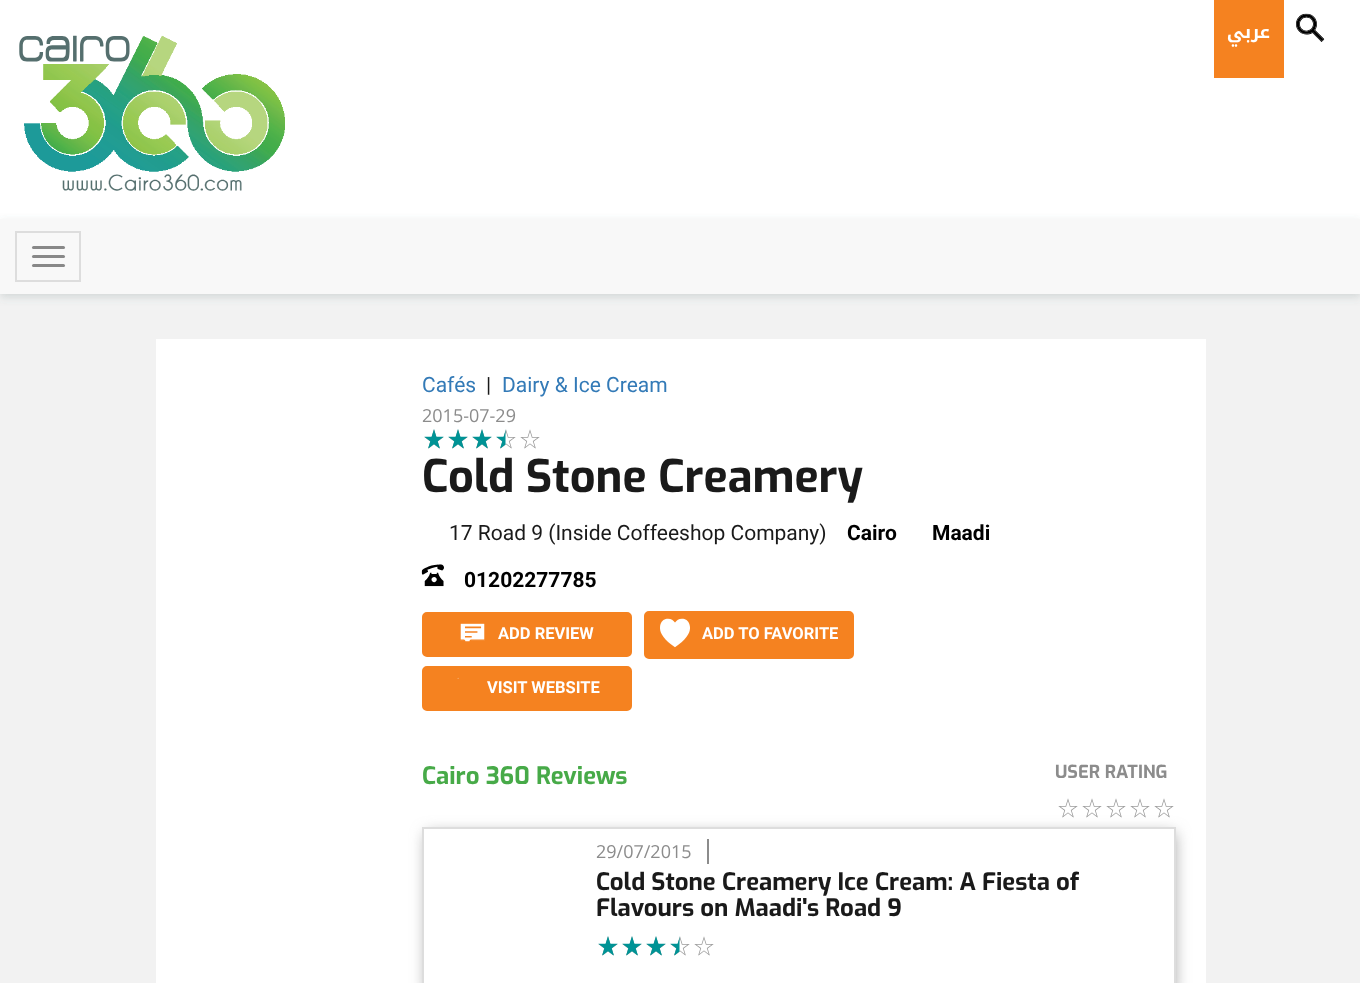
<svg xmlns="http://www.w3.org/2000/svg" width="1360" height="983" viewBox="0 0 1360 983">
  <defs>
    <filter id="blur1" x="-50%" y="-200%" width="200%" height="500%"><feGaussianBlur stdDeviation="4.5"/></filter>
    <clipPath id="clip1"><path d="M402 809H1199V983H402ZM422 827H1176V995H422Z" clip-rule="evenodd"/></clipPath>
    <filter id="blur2" x="-50%" y="-200%" width="200%" height="500%"><feGaussianBlur stdDeviation="7.5"/></filter>
  </defs>
  <rect width="100%" height="100%" fill="#f2f2f2"/>
  <rect x="0" y="0" width="1360" height="219" fill="#ffffff"/>
  <image x="19" y="35" width="266" height="156" href="img1.png"/>
  <rect x="1214" y="0" width="70" height="78" fill="#f58220"/>
  <text x="1270" y="38" font-family="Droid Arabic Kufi" font-size="18" font-weight="bold" direction="rtl" fill="#ffffff">عربي</text>
  <image x="1296" y="13" width="29" height="29" href="img2.png"/>
  <rect x="0" y="222" width="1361" height="75" fill="#55706f" fill-opacity="0.21" filter="url(#blur1)"/>
  <rect x="0" y="219" width="1360" height="75" fill="#f8f8f8"/>
  <rect x="16" y="232" width="64" height="49" fill="none" stroke="#dddddd" stroke-width="2"/>
  <rect x="32" y="246" width="33" height="3" rx="1.5" fill="#888888"/>
  <rect x="32" y="255" width="33" height="3" rx="1.5" fill="#888888"/>
  <rect x="32" y="264" width="33" height="3" rx="1.5" fill="#888888"/>
  <rect x="156" y="339" width="1050" height="644" fill="#ffffff"/>
  <text x="422" y="392" font-family="Roboto" font-size="21" fill="#337ab7">Cafés</text>
  <text x="486" y="392" font-family="Roboto" font-size="21" fill="#1a1a1a">|</text>
  <text x="502" y="392" font-family="Roboto" font-size="21" fill="#337ab7">Dairy &amp; Ice Cream</text>
  <text x="422" y="422" font-family="Open Sans" font-size="18" fill="#8c8c8c">2015-07-29</text>
  <image x="424" y="429" width="116" height="20" href="img3.png"/>
  <image x="424" y="429" width="82" height="20" href="img4.png"/>
  <text x="422" y="492" font-family="Exo" font-size="45" font-weight="bold" fill="#1a1a1a">Cold Stone Creamery</text>
  <text x="449" y="540" font-family="Roboto" font-size="21" fill="#1a1a1a">17 Road 9 (Inside Coffeeshop Company)</text>
  <text x="847" y="540" font-family="Roboto" font-size="21" font-weight="bold" fill="#000000">Cairo</text>
  <text x="932" y="540" font-family="Roboto" font-size="21" font-weight="bold" fill="#000000">Maadi</text>
  <image x="421" y="564" width="23" height="23" href="img5.png"/>
  <text x="464" y="587" font-family="Roboto" font-size="21" font-weight="bold" fill="#000000">01202277785</text>
  <rect x="423" y="613" width="208" height="43" rx="4" fill="#f58220" stroke="#f58220" stroke-width="2"/>
  <image x="460" y="623" width="25" height="19" href="img6.png"/>
  <text x="498" y="639" font-family="Roboto" font-size="16.5" font-weight="bold" fill="#ffffff">ADD REVIEW</text>
  <rect x="645" y="612" width="208" height="46" rx="4" fill="#f58220" stroke="#f58220" stroke-width="2"/>
  <image x="660" y="618" width="30" height="30" href="img7.png"/>
  <text x="702" y="639" font-family="Roboto" font-size="16.5" font-weight="bold" fill="#ffffff">ADD TO FAVORITE</text>
  <rect x="423" y="667" width="208" height="43" rx="4" fill="#f58220" stroke="#f58220" stroke-width="2"/>
  <image x="457" y="677" width="2" height="2" href="img8.png"/>
  <text x="487" y="693" font-family="Roboto" font-size="16.5" font-weight="bold" fill="#ffffff">VISIT WEBSITE</text>
  <text x="422" y="784" font-family="Exo" font-size="24" font-weight="bold" fill="#47aa48">Cairo 360 Reviews</text>
  <text x="1055" y="778" font-family="Exo" font-size="18" font-weight="bold" fill="#8c8c8c">USER RATING</text>
  <image x="1058" y="798" width="116" height="20" href="img3.png"/>
  <g clip-path="url(#clip1)">
    <rect x="426" y="833" width="749" height="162" fill="#a5a5a5" filter="url(#blur2)"/>
  </g>
  <rect x="423" y="828" width="752" height="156" fill="none" stroke="#dddddd" stroke-width="2"/>
  <text x="596" y="858" font-family="Open Sans" font-size="18" fill="#8c8c8c">29/07/2015</text>
  <rect x="707" y="839" width="2" height="25" fill="#8c8c8c"/>
  <text x="596" y="890" font-family="Exo" font-size="24" font-weight="bold" fill="#1a1a1a">Cold Stone Creamery Ice Cream: A Fiesta of</text>
  <text x="596" y="916" font-family="Exo" font-size="24" font-weight="bold" fill="#1a1a1a">Flavours on Maadi's Road 9</text>
  <image x="598" y="936" width="116" height="20" href="img3.png"/>
  <image x="598" y="936" width="82" height="20" href="img4.png"/>
</svg>
